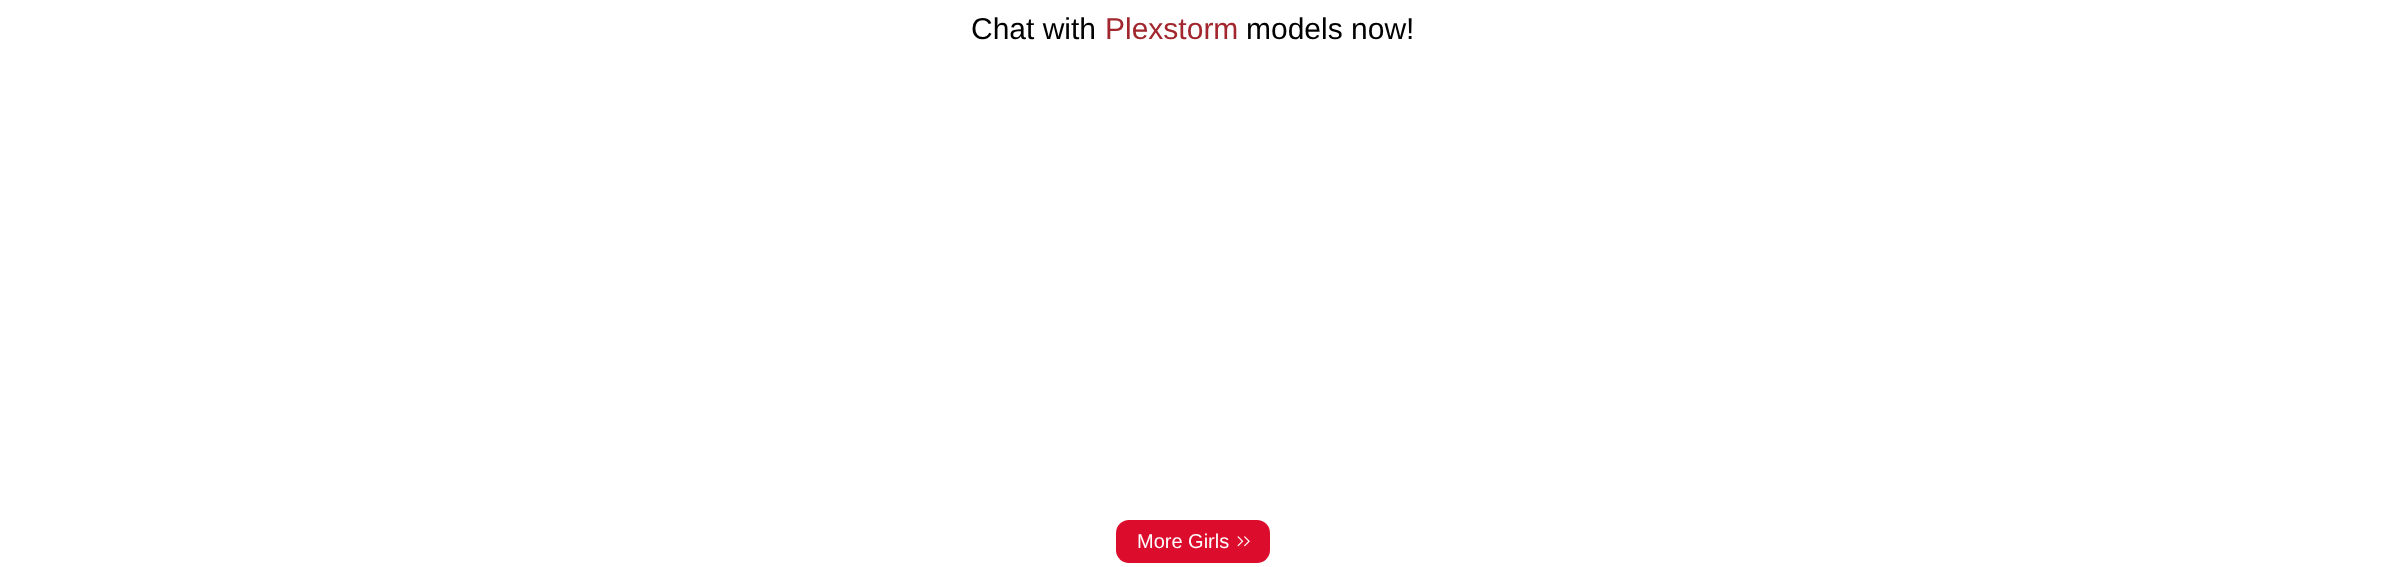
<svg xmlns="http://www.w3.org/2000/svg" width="2386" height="567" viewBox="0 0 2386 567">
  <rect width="100%" height="100%" fill="#ffffff"/>
  <text x="971" y="39" font-family="Liberation Sans" font-size="30" fill="#000000">Chat with</text>
  <text x="1105" y="39" font-family="Liberation Sans" font-size="30" fill="#a2262e">Plexstorm</text>
  <text x="1246" y="39" font-family="Liberation Sans" font-size="30" fill="#000000">models now!</text>
  <rect x="1116" y="520" width="154" height="43" rx="13" fill="#dc0c2c"/>
  <text x="1137" y="548" font-family="Liberation Sans" font-size="20" fill="#ffffff">More Girls</text>
  <image x="1237" y="536" width="13" height="11" href="img1.png"/>
</svg>
